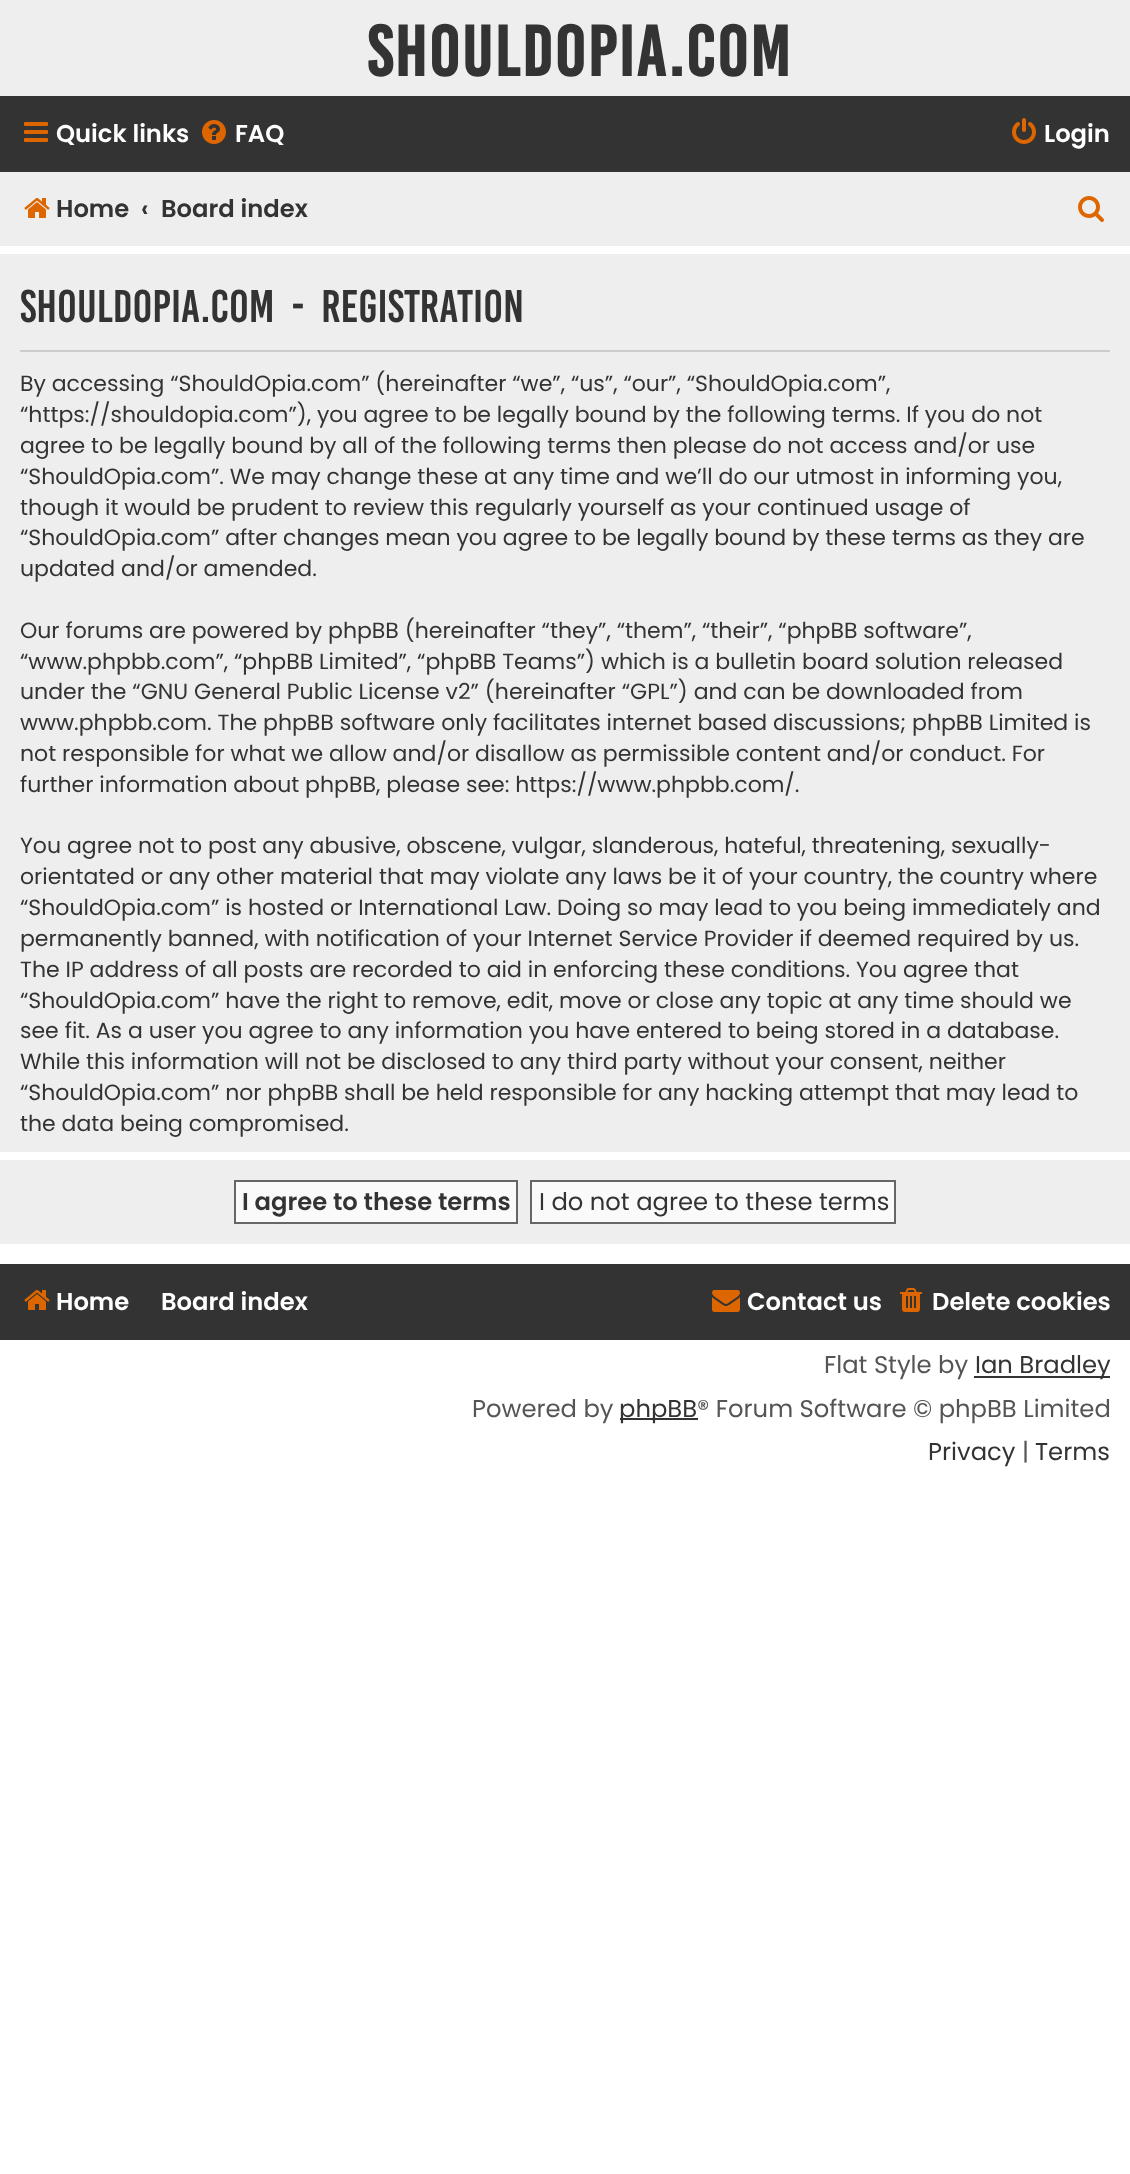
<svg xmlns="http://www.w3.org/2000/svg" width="1130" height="2174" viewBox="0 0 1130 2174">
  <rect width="100%" height="100%" fill="#ffffff"/>
  <rect x="0" y="0" width="1130" height="96" fill="#eeeeee"/>
  <text x="367" y="76" font-family="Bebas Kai" font-size="55" font-weight="bold" letter-spacing="2" fill="#333333">ShouldOpia.com</text>
  <rect x="0" y="96" width="1130" height="76" fill="#333333"/>
  <image x="24" y="122" width="24" height="20" href="img1.png"/>
  <text x="56" y="142" font-family="Poppins" font-size="24.25" font-weight="600" fill="#ffffff">Quick links</text>
  <image x="202" y="120" width="24" height="24" href="img2.png"/>
  <text x="235" y="142" font-family="Poppins" font-size="24.25" font-weight="600" fill="#ffffff">FAQ</text>
  <image x="1012" y="118" width="24" height="26" href="img3.png"/>
  <text x="1044" y="142" font-family="Poppins" font-size="24.25" font-weight="600" fill="#ffffff">Login</text>
  <rect x="0" y="172" width="1130" height="74" fill="#eeeeee"/>
  <image x="24" y="198" width="26" height="20" href="img4.png"/>
  <text x="56" y="217" font-family="Poppins" font-size="24.25" font-weight="600" fill="#333333">Home</text>
  <text x="141" y="217" font-family="Poppins" font-size="24.25" font-weight="600" fill="#333333">‹</text>
  <text x="161" y="217" font-family="Poppins" font-size="24.25" font-weight="600" fill="#333333">Board index</text>
  <image x="1078" y="196" width="26" height="26" href="img5.png"/>
  <rect x="0" y="254" width="1130" height="898" fill="#eeeeee"/>
  <rect x="20" y="350" width="1090" height="2" fill="#cccccc"/>
  <text x="20" y="322" word-spacing="8" font-family="Bebas Kai" font-size="35.25" fill="#333333">ShouldOpia.com - Registration</text>
  <text x="20" y="391" font-family="Poppins" font-size="22" fill="#333333">By accessing “ShouldOpia.com” (hereinafter “we”, “us”, “our”, “ShouldOpia.com”,</text>
  <text x="20" y="422" font-family="Poppins" font-size="22" fill="#333333">“https://shouldopia.com”), you agree to be legally bound by the following terms. If you do not</text>
  <text x="20" y="453" font-family="Poppins" font-size="22" fill="#333333">agree to be legally bound by all of the following terms then please do not access and/or use</text>
  <text x="20" y="484" font-family="Poppins" font-size="22" fill="#333333">“ShouldOpia.com”. We may change these at any time and we’ll do our utmost in informing you,</text>
  <text x="20" y="515" font-family="Poppins" font-size="22" fill="#333333">though it would be prudent to review this regularly yourself as your continued usage of</text>
  <text x="20" y="545" font-family="Poppins" font-size="22" fill="#333333">“ShouldOpia.com” after changes mean you agree to be legally bound by these terms as they are</text>
  <text x="20" y="576" font-family="Poppins" font-size="22" fill="#333333">updated and/or amended.</text>
  <text x="20" y="638" font-family="Poppins" font-size="22" fill="#333333">Our forums are powered by phpBB (hereinafter “they”, “them”, “their”, “phpBB software”,</text>
  <text x="20" y="669" font-family="Poppins" font-size="22" fill="#333333">“www.phpbb.com”, “phpBB Limited”, “phpBB Teams”) which is a bulletin board solution released</text>
  <text x="20" y="699" font-family="Poppins" font-size="22" fill="#333333">under the “GNU General Public License v2” (hereinafter “GPL”) and can be downloaded from</text>
  <text x="20" y="730" font-family="Poppins" font-size="22" fill="#333333">www.phpbb.com. The phpBB software only facilitates internet based discussions; phpBB Limited is</text>
  <text x="20" y="761" font-family="Poppins" font-size="22" fill="#333333">not responsible for what we allow and/or disallow as permissible content and/or conduct. For</text>
  <text x="20" y="792" font-family="Poppins" font-size="22" fill="#333333">further information about phpBB, please see: https://www.phpbb.com/.</text>
  <text x="20" y="853" font-family="Poppins" font-size="22" fill="#333333">You agree not to post any abusive, obscene, vulgar, slanderous, hateful, threatening, sexually-</text>
  <text x="20" y="884" font-family="Poppins" font-size="22" fill="#333333">orientated or any other material that may violate any laws be it of your country, the country where</text>
  <text x="20" y="915" font-family="Poppins" font-size="22" fill="#333333">“ShouldOpia.com” is hosted or International Law. Doing so may lead to you being immediately and</text>
  <text x="20" y="946" font-family="Poppins" font-size="22" fill="#333333">permanently banned, with notification of your Internet Service Provider if deemed required by us.</text>
  <text x="20" y="977" font-family="Poppins" font-size="22" fill="#333333">The IP address of all posts are recorded to aid in enforcing these conditions. You agree that</text>
  <text x="20" y="1008" font-family="Poppins" font-size="22" fill="#333333">“ShouldOpia.com” have the right to remove, edit, move or close any topic at any time should we</text>
  <text x="20" y="1038" font-family="Poppins" font-size="22" fill="#333333">see fit. As a user you agree to any information you have entered to being stored in a database.</text>
  <text x="20" y="1069" font-family="Poppins" font-size="22" fill="#333333">While this information will not be disclosed to any third party without your consent, neither</text>
  <text x="20" y="1100" font-family="Poppins" font-size="22" fill="#333333">“ShouldOpia.com” nor phpBB shall be held responsible for any hacking attempt that may lead to</text>
  <text x="20" y="1131" font-family="Poppins" font-size="22" fill="#333333">the data being compromised.</text>
  <rect x="0" y="1160" width="1130" height="84" fill="#eeeeee"/>
  <rect x="235" y="1181" width="282" height="42" fill="#fafafa" stroke="#666666" stroke-width="2"/>
  <text x="242" y="1210" font-family="Poppins" font-size="24.25" font-weight="600" fill="#333333">I agree to these terms</text>
  <rect x="531" y="1181" width="364" height="42" fill="#fafafa" stroke="#666666" stroke-width="2"/>
  <text x="539" y="1210" font-family="Poppins" font-size="24.25" fill="#333333">I do not agree to these terms</text>
  <rect x="0" y="1264" width="1130" height="76" fill="#333333"/>
  <image x="24" y="1290" width="26" height="20" href="img6.png"/>
  <text x="56" y="1310" font-family="Poppins" font-size="24.25" font-weight="600" fill="#ffffff">Home</text>
  <text x="161" y="1310" font-family="Poppins" font-size="24.25" font-weight="600" fill="#ffffff">Board index</text>
  <image x="712" y="1290" width="28" height="22" href="img7.png"/>
  <text x="747" y="1310" font-family="Poppins" font-size="24.25" font-weight="600" fill="#ffffff">Contact us</text>
  <image x="900" y="1288" width="22" height="24" href="img8.png"/>
  <text x="932" y="1310" font-family="Poppins" font-size="24.25" font-weight="600" fill="#ffffff">Delete cookies</text>
  <text x="824" y="1373" font-family="Poppins" font-size="24.25" fill="#555555">Flat Style by</text>
  <rect x="974" y="1376" width="136" height="2" fill="#333333"/>
  <text x="975" y="1373" font-family="Poppins" font-size="24.25" fill="#333333">Ian Bradley</text>
  <text x="472" y="1417" font-family="Poppins" font-size="24.25" fill="#555555">Powered by</text>
  <rect x="620" y="1418" width="78" height="2" fill="#333333"/>
  <text x="619" y="1417" font-family="Poppins" font-size="24.25" fill="#333333">phpBB</text>
  <text x="697" y="1417" font-family="Poppins" font-size="24.25" fill="#555555">® Forum Software © phpBB Limited</text>
  <text x="928" y="1460" font-family="Poppins" font-size="24.25" fill="#333333">Privacy</text>
  <text x="1022" y="1460" font-family="Poppins" font-size="24.25" fill="#555555">|</text>
  <text x="1035" y="1460" font-family="Poppins" font-size="24.25" fill="#333333">Terms</text>
</svg>
